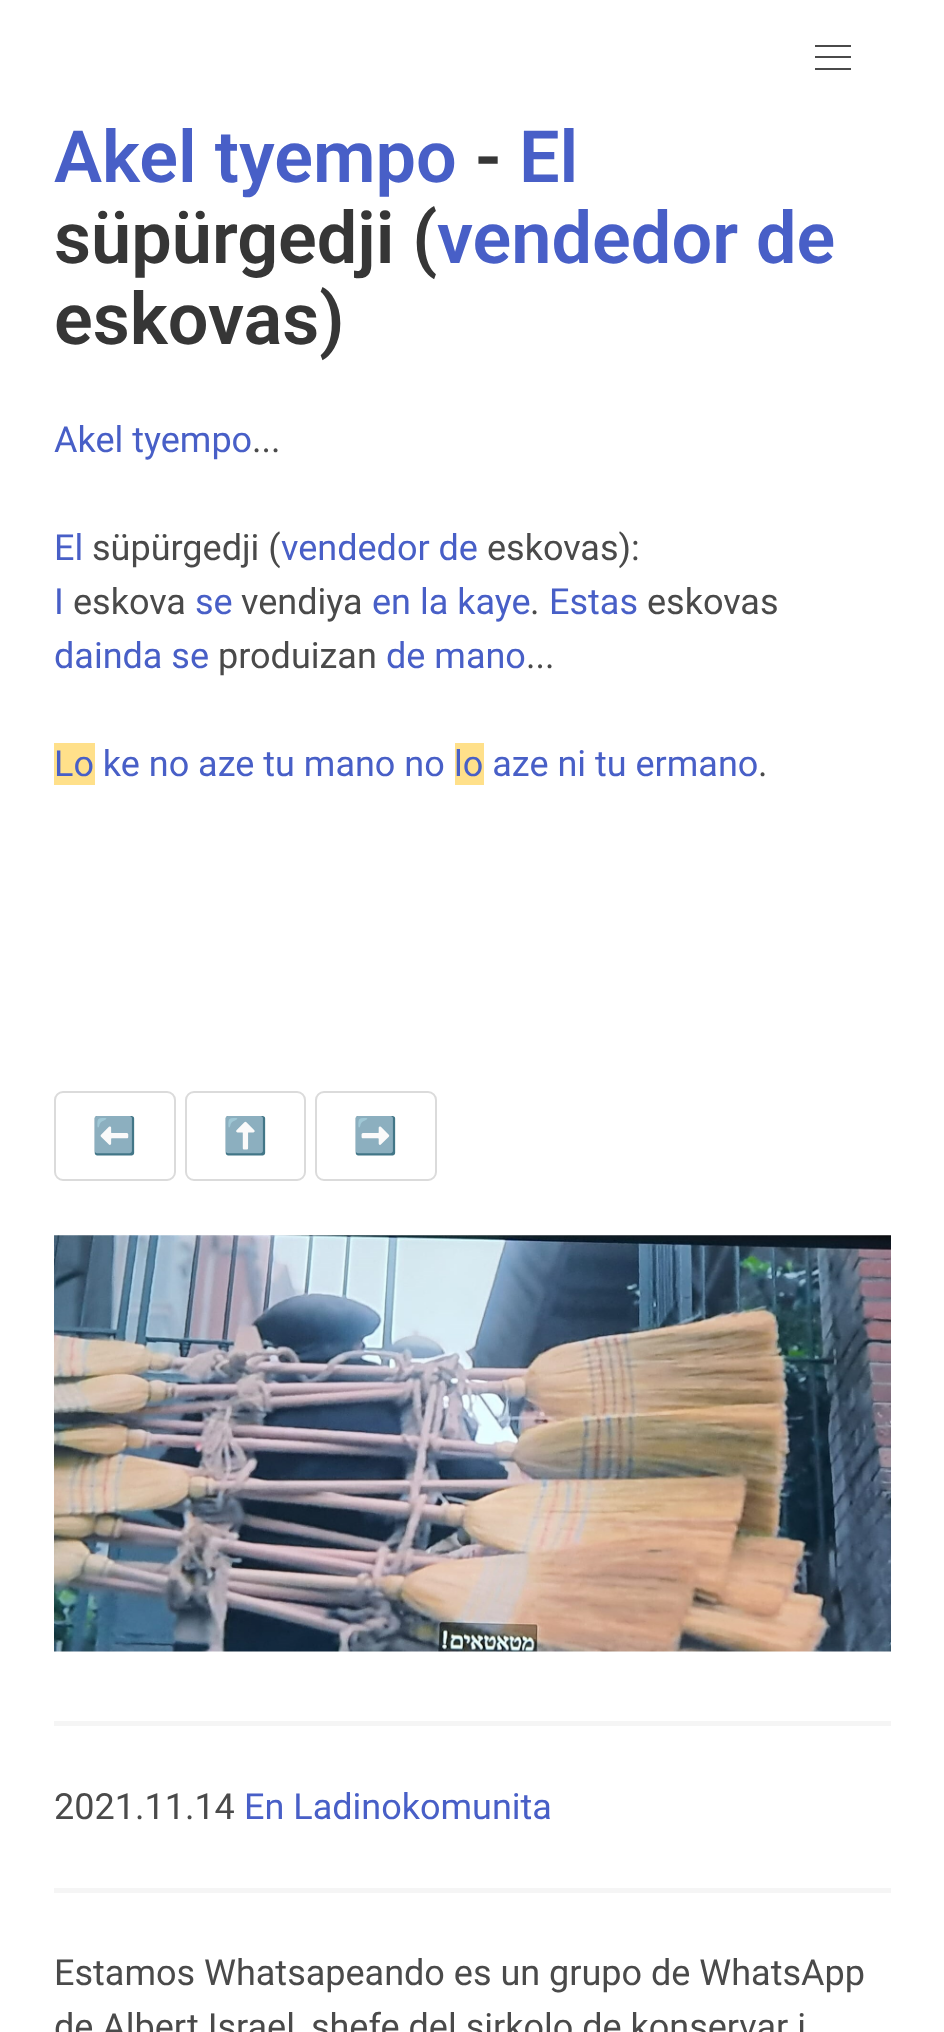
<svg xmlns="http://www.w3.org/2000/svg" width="944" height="2032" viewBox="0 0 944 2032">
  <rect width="100%" height="100%" fill="#ffffff"/>
  <rect x="815" y="45" width="36" height="2" fill="#4a4a4a"/>
  <rect x="815" y="56" width="36" height="2" fill="#4a4a4a"/>
  <rect x="815" y="68" width="36" height="2" fill="#4a4a4a"/>
  <text x="54" y="182" font-family="Roboto" font-size="72" font-weight="600" fill="#485fc7">Akel tyempo</text>
  <text x="475" y="182" font-family="Roboto" font-size="72" font-weight="600" fill="#363636">-</text>
  <text x="519" y="182" font-family="Roboto" font-size="72" font-weight="600" fill="#485fc7">El</text>
  <text x="54" y="263" font-family="Roboto" font-size="72" font-weight="600" fill="#363636">süpürgedji (</text>
  <text x="437" y="263" font-family="Roboto" font-size="72" font-weight="600" fill="#485fc7">vendedor de</text>
  <text x="54" y="344" font-family="Roboto" font-size="72" font-weight="600" fill="#363636">eskovas)</text>
  <text x="54" y="452" font-family="Roboto" font-size="36" fill="#485fc7">Akel tyempo</text>
  <text x="252" y="452" font-family="Roboto" font-size="36" fill="#4a4a4a">...</text>
  <text x="54" y="560" font-family="Roboto" font-size="36" fill="#485fc7">El</text>
  <text x="92" y="560" font-family="Roboto" font-size="36" fill="#4a4a4a">süpürgedji (</text>
  <text x="281" y="560" font-family="Roboto" font-size="36" fill="#485fc7">vendedor de</text>
  <text x="487" y="560" font-family="Roboto" font-size="36" fill="#4a4a4a">eskovas):</text>
  <text x="54" y="614" font-family="Roboto" font-size="36" fill="#485fc7">I</text>
  <text x="73" y="614" font-family="Roboto" font-size="36" fill="#4a4a4a">eskova</text>
  <text x="195" y="614" font-family="Roboto" font-size="36" fill="#485fc7">se</text>
  <text x="241" y="614" font-family="Roboto" font-size="36" fill="#4a4a4a">vendiya</text>
  <text x="372" y="614" font-family="Roboto" font-size="36" fill="#485fc7">en la kaye</text>
  <text x="530" y="614" font-family="Roboto" font-size="36" fill="#4a4a4a">.</text>
  <text x="549" y="614" font-family="Roboto" font-size="36" fill="#485fc7">Estas</text>
  <text x="647" y="614" font-family="Roboto" font-size="36" fill="#4a4a4a">eskovas</text>
  <text x="54" y="668" font-family="Roboto" font-size="36" fill="#485fc7">dainda se</text>
  <text x="218" y="668" font-family="Roboto" font-size="36" fill="#4a4a4a">produizan</text>
  <text x="386" y="668" font-family="Roboto" font-size="36" fill="#485fc7">de mano</text>
  <text x="526" y="668" font-family="Roboto" font-size="36" fill="#4a4a4a">...</text>
  <rect x="54" y="743" width="41" height="42" fill="#ffe08a"/>
  <text x="54" y="776" font-family="Roboto" font-size="36" fill="#485fc7">Lo ke no aze tu mano no</text>
  <rect x="455" y="743" width="29" height="42" fill="#ffe08a"/>
  <text x="454" y="776" font-family="Roboto" font-size="36" fill="#485fc7">lo aze ni tu ermano</text>
  <text x="758" y="776" font-family="Roboto" font-size="36" fill="#4a4a4a">.</text>
  <rect x="55" y="1092" width="120" height="88" rx="8" fill="none" stroke="#dbdbdb" stroke-width="2"/>
  <text x="92" y="1148" font-family="Noto Color Emoji" font-size="36" fill="#363636">⬅️</text>
  <rect x="186" y="1092" width="119" height="88" rx="8" fill="none" stroke="#dbdbdb" stroke-width="2"/>
  <text x="223" y="1148" font-family="Noto Color Emoji" font-size="36" fill="#363636">⬆️</text>
  <rect x="316" y="1092" width="120" height="88" rx="8" fill="none" stroke="#dbdbdb" stroke-width="2"/>
  <text x="353" y="1148" font-family="Noto Color Emoji" font-size="36" fill="#363636">➡️</text>
  <image x="54" y="1235" width="837" height="417" href="img1.png"/>
  <rect x="54" y="1721" width="837" height="5" fill="#f5f5f5"/>
  <text x="54" y="1819" font-family="Roboto" font-size="36" fill="#4a4a4a">2021.11.14</text>
  <text x="244" y="1819" font-family="Roboto" font-size="36" fill="#485fc7">En Ladinokomunita</text>
  <rect x="54" y="1888" width="837" height="5" fill="#f5f5f5"/>
  <text x="54" y="1985" font-family="Roboto" font-size="36" fill="#4a4a4a">Estamos Whatsapeando es un grupo de WhatsApp</text>
  <text x="54" y="2039" font-family="Roboto" font-size="36" fill="#4a4a4a">de Albert Israel, shefe del sirkolo de konservar i</text>
</svg>
